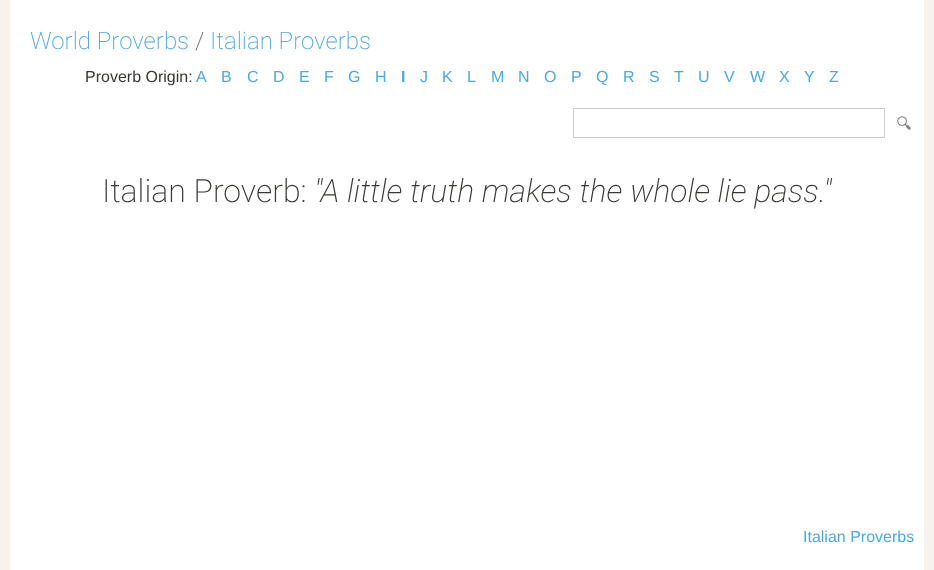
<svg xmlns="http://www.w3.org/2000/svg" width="934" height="570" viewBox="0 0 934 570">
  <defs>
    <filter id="blur1" x="-50%" y="-200%" width="200%" height="500%"><feGaussianBlur stdDeviation="0.5"/></filter>
  </defs>
  <rect width="100%" height="100%" fill="#f7f2ee"/>
  <rect x="10" y="0" width="914" height="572" fill="#cccccc" filter="url(#blur1)"/>
  <rect x="10" y="0" width="914" height="570" fill="#ffffff"/>
  <text x="30" y="49" font-family="Roboto" font-size="24" font-weight="200" fill="#4ea8de">World Proverbs</text>
  <text x="195" y="49" font-family="Roboto" font-size="24" font-weight="200" fill="#666666">/</text>
  <text x="210" y="49" font-family="Roboto" font-size="24" font-weight="200" fill="#4ea8de">Italian Proverbs</text>
  <text x="85" y="82" font-family="Liberation Sans" font-size="16" fill="#393733">Proverb Origin:</text>
  <text x="196" y="82" font-family="Liberation Sans" font-size="16" fill="#4ea8de">A</text>
  <text x="221" y="82" font-family="Liberation Sans" font-size="16" fill="#4ea8de">B</text>
  <text x="247" y="82" font-family="Liberation Sans" font-size="16" fill="#4ea8de">C</text>
  <text x="273" y="82" font-family="Liberation Sans" font-size="16" fill="#4ea8de">D</text>
  <text x="299" y="82" font-family="Liberation Sans" font-size="16" fill="#4ea8de">E</text>
  <text x="324" y="82" font-family="Liberation Sans" font-size="16" fill="#4ea8de">F</text>
  <text x="348" y="82" font-family="Liberation Sans" font-size="16" fill="#4ea8de">G</text>
  <text x="375" y="82" font-family="Liberation Sans" font-size="16" fill="#4ea8de">H</text>
  <text x="401" y="82" font-family="Liberation Sans" font-size="16" font-weight="bold" fill="#4ea8de">I</text>
  <text x="420" y="82" font-family="Liberation Sans" font-size="16" fill="#4ea8de">J</text>
  <text x="442" y="82" font-family="Liberation Sans" font-size="16" fill="#4ea8de">K</text>
  <text x="467" y="82" font-family="Liberation Sans" font-size="16" fill="#4ea8de">L</text>
  <text x="491" y="82" font-family="Liberation Sans" font-size="16" fill="#4ea8de">M</text>
  <text x="518" y="82" font-family="Liberation Sans" font-size="16" fill="#4ea8de">N</text>
  <text x="544" y="82" font-family="Liberation Sans" font-size="16" fill="#4ea8de">O</text>
  <text x="571" y="82" font-family="Liberation Sans" font-size="16" fill="#4ea8de">P</text>
  <text x="596" y="82" font-family="Liberation Sans" font-size="16" fill="#4ea8de">Q</text>
  <text x="623" y="82" font-family="Liberation Sans" font-size="16" fill="#4ea8de">R</text>
  <text x="649" y="82" font-family="Liberation Sans" font-size="16" fill="#4ea8de">S</text>
  <text x="674" y="82" font-family="Liberation Sans" font-size="16" fill="#4ea8de">T</text>
  <text x="698" y="82" font-family="Liberation Sans" font-size="16" fill="#4ea8de">U</text>
  <text x="724" y="82" font-family="Liberation Sans" font-size="16" fill="#4ea8de">V</text>
  <text x="750" y="82" font-family="Liberation Sans" font-size="16" fill="#4ea8de">W</text>
  <text x="779" y="82" font-family="Liberation Sans" font-size="16" fill="#4ea8de">X</text>
  <text x="804" y="82" font-family="Liberation Sans" font-size="16" fill="#4ea8de">Y</text>
  <text x="829" y="82" font-family="Liberation Sans" font-size="16" fill="#4ea8de">Z</text>
  <rect x="573.5" y="108.5" width="311" height="29" fill="none" stroke="#cccccc"/>
  <image x="897" y="116" width="14" height="14" href="img1.png"/>
  <text x="102" y="202" font-family="Roboto" font-size="32" font-weight="200" fill="#393733">Italian Proverb:</text>
  <text x="314" y="202" font-family="Roboto" font-size="32" font-weight="200" font-style="italic" fill="#393733">"A little truth makes the whole lie pass."</text>
  <text x="803" y="542" font-family="Liberation Sans" font-size="16" fill="#4ea8de">Italian Proverbs</text>
</svg>
